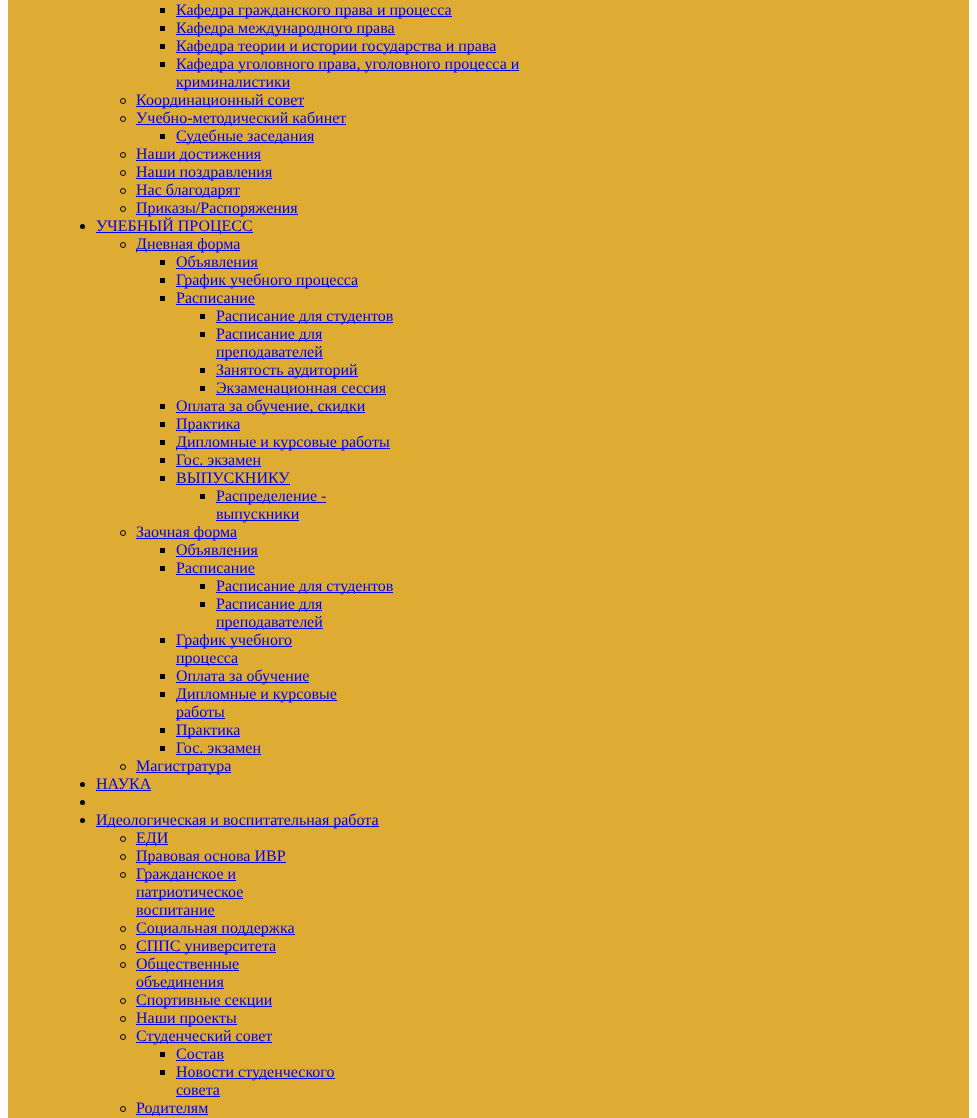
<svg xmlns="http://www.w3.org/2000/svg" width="977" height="1118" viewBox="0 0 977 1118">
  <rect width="100%" height="100%" fill="#ffffff"/>
  <rect x="8" y="0" width="961" height="1118" fill="#dfac33"/>
  <rect x="160" y="8" width="5" height="5" fill="#000000"/>
  <rect x="176" y="16" width="276" height="1" fill="#0000ee"/>
  <text x="176" y="15" font-family="Liberation Serif" font-size="16" fill="#0000ee">Кафедра гражданского права и процесса</text>
  <rect x="160" y="26" width="5" height="5" fill="#000000"/>
  <rect x="176" y="34" width="219" height="1" fill="#0000ee"/>
  <text x="176" y="33" font-family="Liberation Serif" font-size="16" fill="#0000ee">Кафедра международного права</text>
  <rect x="160" y="44" width="5" height="5" fill="#000000"/>
  <rect x="176" y="52" width="320" height="1" fill="#0000ee"/>
  <text x="176" y="51" font-family="Liberation Serif" font-size="16" fill="#0000ee">Кафедра теории и истории государства и права</text>
  <rect x="160" y="62" width="5" height="5" fill="#000000"/>
  <rect x="176" y="70" width="343" height="1" fill="#0000ee"/>
  <text x="176" y="69" font-family="Liberation Serif" font-size="16" fill="#0000ee">Кафедра уголовного права, уголовного процесса и</text>
  <rect x="176" y="88" width="114" height="1" fill="#0000ee"/>
  <text x="176" y="87" font-family="Liberation Serif" font-size="16" fill="#0000ee">криминалистики</text>
  <circle cx="123" cy="101" r="2.5" fill="none" stroke="#000000"/>
  <rect x="136" y="106" width="168" height="1" fill="#0000ee"/>
  <text x="136" y="105" font-family="Liberation Serif" font-size="16" fill="#0000ee">Координационный совет</text>
  <circle cx="123" cy="119" r="2.5" fill="none" stroke="#000000"/>
  <rect x="136" y="124" width="210" height="1" fill="#0000ee"/>
  <text x="136" y="123" font-family="Liberation Serif" font-size="16" fill="#0000ee">Учебно-методический кабинет</text>
  <rect x="160" y="134" width="5" height="5" fill="#000000"/>
  <rect x="176" y="142" width="138" height="1" fill="#0000ee"/>
  <text x="176" y="141" font-family="Liberation Serif" font-size="16" fill="#0000ee">Судебные заседания</text>
  <circle cx="123" cy="155" r="2.5" fill="none" stroke="#000000"/>
  <rect x="136" y="160" width="125" height="1" fill="#0000ee"/>
  <text x="136" y="159" font-family="Liberation Serif" font-size="16" fill="#0000ee">Наши достижения</text>
  <circle cx="123" cy="173" r="2.5" fill="none" stroke="#000000"/>
  <rect x="136" y="178" width="136" height="1" fill="#0000ee"/>
  <text x="136" y="177" font-family="Liberation Serif" font-size="16" fill="#0000ee">Наши поздравления</text>
  <circle cx="123" cy="191" r="2.5" fill="none" stroke="#000000"/>
  <rect x="136" y="196" width="104" height="1" fill="#0000ee"/>
  <text x="136" y="195" font-family="Liberation Serif" font-size="16" fill="#0000ee">Нас благодарят</text>
  <circle cx="123" cy="209" r="2.5" fill="none" stroke="#000000"/>
  <rect x="136" y="214" width="162" height="1" fill="#0000ee"/>
  <text x="136" y="213" font-family="Liberation Serif" font-size="16" fill="#0000ee">Приказы/Распоряжения</text>
  <circle cx="82.5" cy="226.5" r="2.5" fill="#000000"/>
  <rect x="96" y="232" width="157" height="1" fill="#0000ee"/>
  <text x="96" y="231" font-family="Liberation Serif" font-size="16" fill="#0000ee">УЧЕБНЫЙ ПРОЦЕСС</text>
  <circle cx="123" cy="245" r="2.5" fill="none" stroke="#000000"/>
  <rect x="136" y="250" width="104" height="1" fill="#0000ee"/>
  <text x="136" y="249" font-family="Liberation Serif" font-size="16" fill="#0000ee">Дневная форма</text>
  <rect x="160" y="260" width="5" height="5" fill="#000000"/>
  <text x="176" y="267" font-family="Liberation Serif" font-size="16" fill="#0000ee">Объявления</text>
  <rect x="176" y="268" width="82" height="1" fill="#0000ee"/>
  <rect x="160" y="278" width="5" height="5" fill="#000000"/>
  <rect x="176" y="286" width="182" height="1" fill="#0000ee"/>
  <text x="176" y="285" font-family="Liberation Serif" font-size="16" fill="#0000ee">График учебного процесса</text>
  <rect x="160" y="296" width="5" height="5" fill="#000000"/>
  <text x="176" y="303" font-family="Liberation Serif" font-size="16" fill="#0000ee">Расписание</text>
  <rect x="176" y="304" width="79" height="1" fill="#0000ee"/>
  <rect x="200" y="314" width="5" height="5" fill="#000000"/>
  <rect x="216" y="322" width="177" height="1" fill="#0000ee"/>
  <text x="216" y="321" font-family="Liberation Serif" font-size="16" fill="#0000ee">Расписание для студентов</text>
  <rect x="200" y="332" width="5" height="5" fill="#000000"/>
  <rect x="216" y="340" width="106" height="1" fill="#0000ee"/>
  <text x="216" y="339" font-family="Liberation Serif" font-size="16" fill="#0000ee">Расписание для</text>
  <rect x="216" y="358" width="107" height="1" fill="#0000ee"/>
  <text x="216" y="357" font-family="Liberation Serif" font-size="16" fill="#0000ee">преподавателей</text>
  <rect x="200" y="368" width="5" height="5" fill="#000000"/>
  <rect x="216" y="376" width="142" height="1" fill="#0000ee"/>
  <text x="216" y="375" font-family="Liberation Serif" font-size="16" fill="#0000ee">Занятость аудиторий</text>
  <rect x="200" y="386" width="5" height="5" fill="#000000"/>
  <rect x="216" y="394" width="170" height="1" fill="#0000ee"/>
  <text x="216" y="393" font-family="Liberation Serif" font-size="16" fill="#0000ee">Экзаменационная сессия</text>
  <rect x="160" y="404" width="5" height="5" fill="#000000"/>
  <rect x="176" y="412" width="189" height="1" fill="#0000ee"/>
  <text x="176" y="411" font-family="Liberation Serif" font-size="16" fill="#0000ee">Оплата за обучение, скидки</text>
  <rect x="160" y="422" width="5" height="5" fill="#000000"/>
  <rect x="176" y="430" width="64" height="1" fill="#0000ee"/>
  <text x="176" y="429" font-family="Liberation Serif" font-size="16" fill="#0000ee">Практика</text>
  <rect x="160" y="440" width="5" height="5" fill="#000000"/>
  <rect x="176" y="448" width="214" height="1" fill="#0000ee"/>
  <text x="176" y="447" font-family="Liberation Serif" font-size="16" fill="#0000ee">Дипломные и курсовые работы</text>
  <rect x="160" y="458" width="5" height="5" fill="#000000"/>
  <text x="176" y="465" font-family="Liberation Serif" font-size="16" fill="#0000ee">Гос. экзамен</text>
  <rect x="176" y="466" width="85" height="1" fill="#0000ee"/>
  <rect x="160" y="476" width="5" height="5" fill="#000000"/>
  <text x="176" y="483" font-family="Liberation Serif" font-size="16" fill="#0000ee">ВЫПУСКНИКУ</text>
  <rect x="176" y="484" width="114" height="1" fill="#0000ee"/>
  <rect x="200" y="494" width="5" height="5" fill="#000000"/>
  <rect x="216" y="502" width="110" height="1" fill="#0000ee"/>
  <text x="216" y="501" font-family="Liberation Serif" font-size="16" fill="#0000ee">Распределение -</text>
  <rect x="216" y="520" width="83" height="1" fill="#0000ee"/>
  <text x="216" y="519" font-family="Liberation Serif" font-size="16" fill="#0000ee">выпускники</text>
  <circle cx="123" cy="533" r="2.5" fill="none" stroke="#000000"/>
  <rect x="136" y="538" width="101" height="1" fill="#0000ee"/>
  <text x="136" y="537" font-family="Liberation Serif" font-size="16" fill="#0000ee">Заочная форма</text>
  <rect x="160" y="548" width="5" height="5" fill="#000000"/>
  <text x="176" y="555" font-family="Liberation Serif" font-size="16" fill="#0000ee">Объявления</text>
  <rect x="176" y="556" width="82" height="1" fill="#0000ee"/>
  <rect x="160" y="566" width="5" height="5" fill="#000000"/>
  <text x="176" y="573" font-family="Liberation Serif" font-size="16" fill="#0000ee">Расписание</text>
  <rect x="176" y="574" width="79" height="1" fill="#0000ee"/>
  <rect x="200" y="584" width="5" height="5" fill="#000000"/>
  <rect x="216" y="592" width="177" height="1" fill="#0000ee"/>
  <text x="216" y="591" font-family="Liberation Serif" font-size="16" fill="#0000ee">Расписание для студентов</text>
  <rect x="200" y="602" width="5" height="5" fill="#000000"/>
  <rect x="216" y="610" width="106" height="1" fill="#0000ee"/>
  <text x="216" y="609" font-family="Liberation Serif" font-size="16" fill="#0000ee">Расписание для</text>
  <rect x="216" y="628" width="107" height="1" fill="#0000ee"/>
  <text x="216" y="627" font-family="Liberation Serif" font-size="16" fill="#0000ee">преподавателей</text>
  <rect x="160" y="638" width="5" height="5" fill="#000000"/>
  <rect x="176" y="646" width="116" height="1" fill="#0000ee"/>
  <text x="176" y="645" font-family="Liberation Serif" font-size="16" fill="#0000ee">График учебного</text>
  <rect x="176" y="664" width="62" height="1" fill="#0000ee"/>
  <text x="176" y="663" font-family="Liberation Serif" font-size="16" fill="#0000ee">процесса</text>
  <rect x="160" y="674" width="5" height="5" fill="#000000"/>
  <rect x="176" y="682" width="133" height="1" fill="#0000ee"/>
  <text x="176" y="681" font-family="Liberation Serif" font-size="16" fill="#0000ee">Оплата за обучение</text>
  <rect x="160" y="692" width="5" height="5" fill="#000000"/>
  <rect x="176" y="700" width="161" height="1" fill="#0000ee"/>
  <text x="176" y="699" font-family="Liberation Serif" font-size="16" fill="#0000ee">Дипломные и курсовые</text>
  <rect x="176" y="718" width="49" height="1" fill="#0000ee"/>
  <text x="176" y="717" font-family="Liberation Serif" font-size="16" fill="#0000ee">работы</text>
  <rect x="160" y="728" width="5" height="5" fill="#000000"/>
  <rect x="176" y="736" width="64" height="1" fill="#0000ee"/>
  <text x="176" y="735" font-family="Liberation Serif" font-size="16" fill="#0000ee">Практика</text>
  <rect x="160" y="746" width="5" height="5" fill="#000000"/>
  <text x="176" y="753" font-family="Liberation Serif" font-size="16" fill="#0000ee">Гос. экзамен</text>
  <rect x="176" y="754" width="85" height="1" fill="#0000ee"/>
  <circle cx="123" cy="767" r="2.5" fill="none" stroke="#000000"/>
  <rect x="136" y="772" width="95" height="1" fill="#0000ee"/>
  <text x="136" y="771" font-family="Liberation Serif" font-size="16" fill="#0000ee">Магистратура</text>
  <circle cx="82.5" cy="784.5" r="2.5" fill="#000000"/>
  <text x="96" y="789" font-family="Liberation Serif" font-size="16" fill="#0000ee">НАУКА</text>
  <rect x="96" y="790" width="55" height="1" fill="#0000ee"/>
  <circle cx="82.5" cy="802.5" r="2.5" fill="#000000"/>
  <circle cx="82.5" cy="820.5" r="2.5" fill="#000000"/>
  <rect x="96" y="826" width="283" height="1" fill="#0000ee"/>
  <text x="96" y="825" font-family="Liberation Serif" font-size="16" fill="#0000ee">Идеологическая и воспитательная работа</text>
  <circle cx="123" cy="839" r="2.5" fill="none" stroke="#000000"/>
  <rect x="136" y="844" width="32" height="1" fill="#0000ee"/>
  <text x="136" y="843" font-family="Liberation Serif" font-size="16" fill="#0000ee">ЕДИ</text>
  <circle cx="123" cy="857" r="2.5" fill="none" stroke="#000000"/>
  <rect x="136" y="862" width="150" height="1" fill="#0000ee"/>
  <text x="136" y="861" font-family="Liberation Serif" font-size="16" fill="#0000ee">Правовая основа ИВР</text>
  <circle cx="123" cy="875" r="2.5" fill="none" stroke="#000000"/>
  <rect x="136" y="880" width="100" height="1" fill="#0000ee"/>
  <text x="136" y="879" font-family="Liberation Serif" font-size="16" fill="#0000ee">Гражданское и</text>
  <rect x="136" y="898" width="107" height="1" fill="#0000ee"/>
  <text x="136" y="897" font-family="Liberation Serif" font-size="16" fill="#0000ee">патриотическое</text>
  <text x="136" y="915" font-family="Liberation Serif" font-size="16" fill="#0000ee">воспитание</text>
  <rect x="136" y="916" width="79" height="1" fill="#0000ee"/>
  <circle cx="123" cy="929" r="2.5" fill="none" stroke="#000000"/>
  <rect x="136" y="934" width="159" height="1" fill="#0000ee"/>
  <text x="136" y="933" font-family="Liberation Serif" font-size="16" fill="#0000ee">Социальная поддержка</text>
  <circle cx="123" cy="947" r="2.5" fill="none" stroke="#000000"/>
  <rect x="136" y="952" width="140" height="1" fill="#0000ee"/>
  <text x="136" y="951" font-family="Liberation Serif" font-size="16" fill="#0000ee">СППС университета</text>
  <circle cx="123" cy="965" r="2.5" fill="none" stroke="#000000"/>
  <rect x="136" y="970" width="103" height="1" fill="#0000ee"/>
  <text x="136" y="969" font-family="Liberation Serif" font-size="16" fill="#0000ee">Общественные</text>
  <rect x="136" y="988" width="88" height="1" fill="#0000ee"/>
  <text x="136" y="987" font-family="Liberation Serif" font-size="16" fill="#0000ee">объединения</text>
  <circle cx="123" cy="1001" r="2.5" fill="none" stroke="#000000"/>
  <rect x="136" y="1006" width="136" height="1" fill="#0000ee"/>
  <text x="136" y="1005" font-family="Liberation Serif" font-size="16" fill="#0000ee">Спортивные секции</text>
  <circle cx="123" cy="1019" r="2.5" fill="none" stroke="#000000"/>
  <rect x="136" y="1024" width="101" height="1" fill="#0000ee"/>
  <text x="136" y="1023" font-family="Liberation Serif" font-size="16" fill="#0000ee">Наши проекты</text>
  <circle cx="123" cy="1037" r="2.5" fill="none" stroke="#000000"/>
  <rect x="136" y="1042" width="136" height="1" fill="#0000ee"/>
  <text x="136" y="1041" font-family="Liberation Serif" font-size="16" fill="#0000ee">Студенческий совет</text>
  <rect x="160" y="1052" width="5" height="5" fill="#000000"/>
  <text x="176" y="1059" font-family="Liberation Serif" font-size="16" fill="#0000ee">Состав</text>
  <rect x="176" y="1060" width="48" height="1" fill="#0000ee"/>
  <rect x="160" y="1070" width="5" height="5" fill="#000000"/>
  <rect x="176" y="1078" width="159" height="1" fill="#0000ee"/>
  <text x="176" y="1077" font-family="Liberation Serif" font-size="16" fill="#0000ee">Новости студенческого</text>
  <text x="176" y="1095" font-family="Liberation Serif" font-size="16" fill="#0000ee">совета</text>
  <rect x="176" y="1096" width="44" height="1" fill="#0000ee"/>
  <circle cx="123" cy="1109" r="2.5" fill="none" stroke="#000000"/>
  <rect x="136" y="1114" width="72" height="1" fill="#0000ee"/>
  <text x="136" y="1113" font-family="Liberation Serif" font-size="16" fill="#0000ee">Родителям</text>
</svg>
